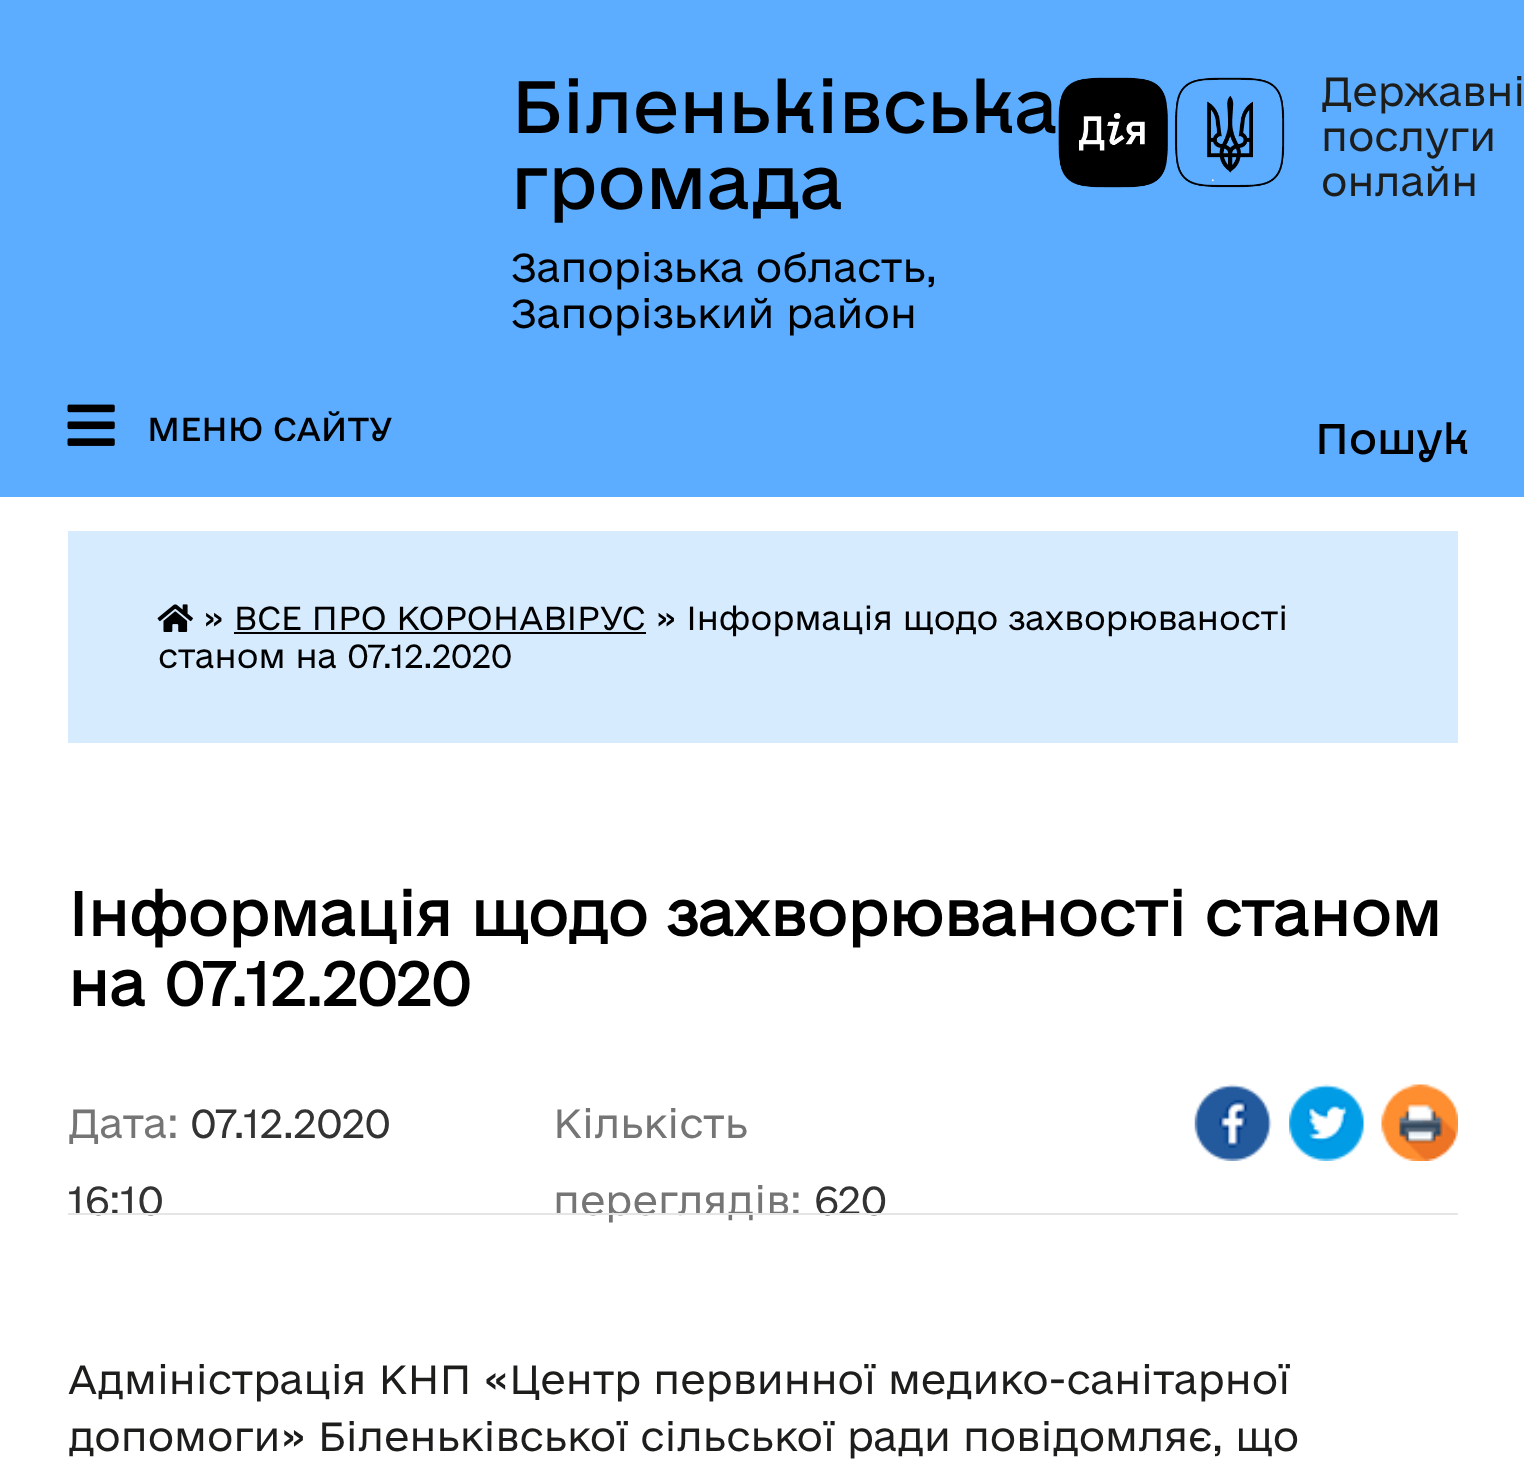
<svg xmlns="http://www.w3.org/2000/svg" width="1524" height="1473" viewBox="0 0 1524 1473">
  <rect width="100%" height="100%" fill="#ffffff"/>
  <rect x="0" y="0" width="1524" height="497" fill="#5cacff"/>
  <text x="511" y="133" font-family="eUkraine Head" font-size="69.75" fill="#000000">Біленьківська</text>
  <text x="511" y="209" font-family="eUkraine Head" font-size="69.75" fill="#000000">громада</text>
  <text x="511" y="282" font-family="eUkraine" font-size="38.25" font-weight="300" fill="#000000">Запорізька область,</text>
  <text x="511" y="328" font-family="eUkraine" font-size="38.25" font-weight="300" fill="#000000">Запорізький район</text>
  <image x="1058" y="77" width="227" height="111" href="img1.png"/>
  <text x="1321" y="106" font-family="eUkraine" font-size="38.25" font-weight="300" fill="#1d1d1b">Державні</text>
  <text x="1321" y="151" font-family="eUkraine" font-size="38.25" font-weight="300" fill="#1d1d1b">послуги</text>
  <text x="1321" y="196" font-family="eUkraine" font-size="38.25" font-weight="300" fill="#1d1d1b">онлайн</text>
  <image x="67" y="404" width="48" height="42" href="img2.png"/>
  <text x="147" y="441" font-family="eUkraine Head" font-size="31.5" fill="#000000">МЕНЮ САЙТУ</text>
  <text x="1315" y="454" font-family="eUkraine Head" font-size="40.5" fill="#000000">Пошук</text>
  <rect x="68" y="531" width="1390" height="212" fill="#d7ebff"/>
  <image x="157" y="604" width="36" height="28" href="img3.png"/>
  <text x="203" y="630" font-family="eUkraine" font-size="31.5" font-weight="300" fill="#000000">» ВСЕ ПРО КОРОНАВІРУС » Інформація щодо захворюваності</text>
  <rect x="234" y="632" width="412" height="2" fill="#000000"/>
  <text x="158" y="668" font-family="eUkraine" font-size="31.5" font-weight="300" fill="#000000">станом на 07.12.2020</text>
  <text x="68" y="936" font-family="eUkraine" font-size="58.5" font-weight="bold" fill="#000000">Інформація щодо захворюваності станом</text>
  <text x="68" y="1006" font-family="eUkraine" font-size="58.5" font-weight="bold" fill="#000000">на 07.12.2020</text>
  <text x="68" y="1138" font-family="eUkraine" font-size="38.25" font-weight="300" fill="#757575">Дата:</text>
  <text x="190" y="1138" font-family="eUkraine" font-size="38.25" font-weight="300" fill="#333333">07.12.2020</text>
  <text x="68" y="1215" font-family="eUkraine" font-size="38.25" font-weight="300" fill="#333333">16:10</text>
  <text x="553" y="1138" font-family="eUkraine" font-size="38.25" font-weight="300" fill="#757575">Кількість</text>
  <text x="553" y="1215" font-family="eUkraine" font-size="38.25" font-weight="300" fill="#757575">переглядів:</text>
  <text x="814" y="1215" font-family="eUkraine" font-size="38.25" font-weight="300" fill="#333333">620</text>
  <image x="1194" y="1084" width="78" height="77" href="img4.png"/>
  <image x="1289" y="1084" width="76" height="77" href="img5.png"/>
  <image x="1381" y="1084" width="77" height="77" href="img6.png"/>
  <rect x="68" y="1213" width="1390" height="2" fill="#e5e5e5"/>
  <text x="68" y="1394" font-family="eUkraine" font-size="38.25" font-weight="300" fill="#1d1d1b">Адміністрація КНП «Центр первинної медико-санітарної</text>
  <text x="68" y="1451" font-family="eUkraine" font-size="38.25" font-weight="300" fill="#1d1d1b">допомоги» Біленьківської сільської ради повідомляє, що</text>
</svg>
